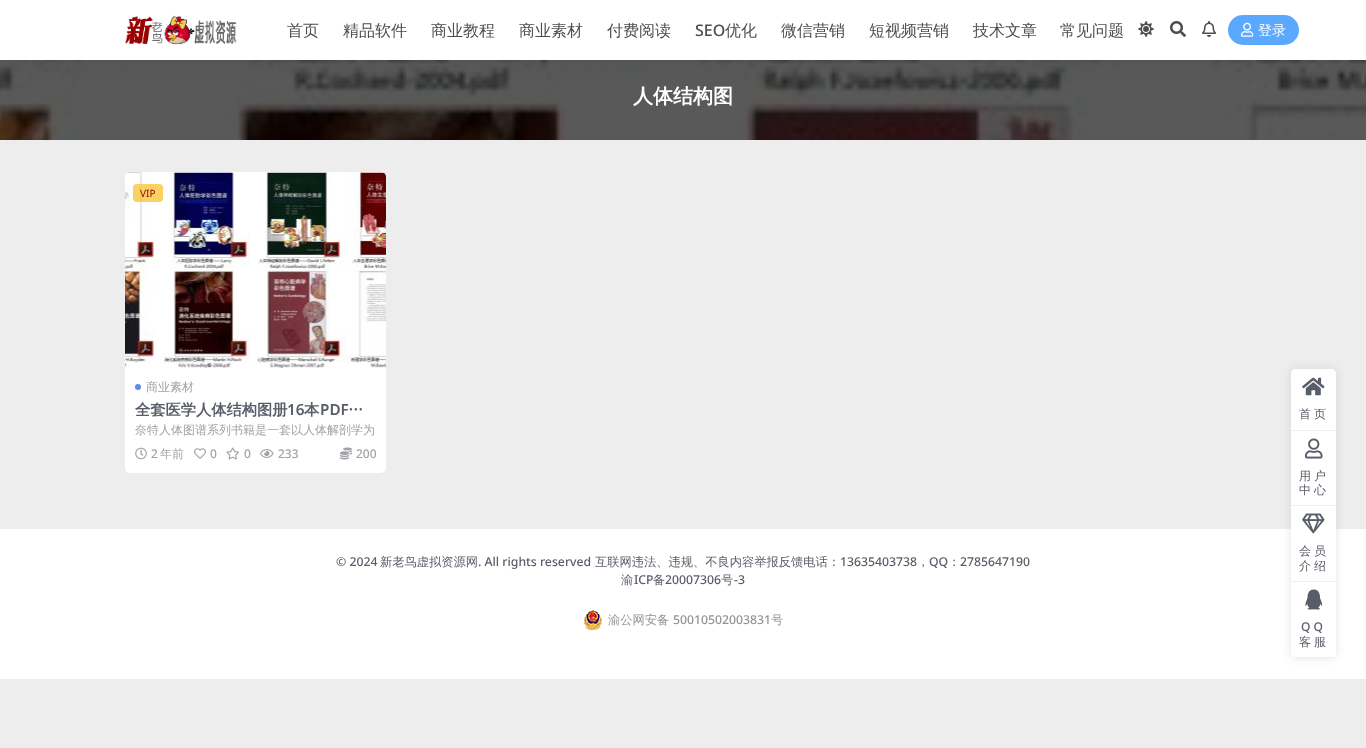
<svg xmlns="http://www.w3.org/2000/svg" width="1366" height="748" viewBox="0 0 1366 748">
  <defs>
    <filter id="blur1" x="-50%" y="-200%" width="200%" height="500%"><feGaussianBlur stdDeviation="15"/></filter>
    <filter id="blur2" x="-50%" y="-200%" width="200%" height="500%"><feGaussianBlur stdDeviation="5"/></filter>
    <clipPath id="clip1"><rect x="1291" y="369" width="45" height="289" rx="5"/></clipPath>
  </defs>
  <rect width="100%" height="100%" fill="#ededed"/>
  <image x="0" y="60" width="1366" height="80" href="img6.png"/>
  <rect x="0" y="0" width="1366" height="60" fill="#000000" fill-opacity="0.07" filter="url(#blur1)"/>
  <rect x="0" y="0" width="1366" height="60" fill="#ffffff"/>
  <image x="125" y="15" width="112" height="30" href="img1.png"/>
  <text x="287" y="36" font-family="WenQuanYi Zen Hei" font-size="16" font-weight="500" fill="#4d4d4d">首页</text>
  <text x="343" y="36" font-family="WenQuanYi Zen Hei" font-size="16" font-weight="500" fill="#4d4d4d">精品软件</text>
  <text x="431" y="36" font-family="WenQuanYi Zen Hei" font-size="16" font-weight="500" fill="#4d4d4d">商业教程</text>
  <text x="519" y="36" font-family="WenQuanYi Zen Hei" font-size="16" font-weight="500" fill="#4d4d4d">商业素材</text>
  <text x="607" y="36" font-family="WenQuanYi Zen Hei" font-size="16" font-weight="500" fill="#4d4d4d">付费阅读</text>
  <text x="695" y="36" font-family="Noto Sans" font-size="16" font-weight="500" fill="#4d4d4d">SEO</text>
  <text x="725" y="36" font-family="WenQuanYi Zen Hei" font-size="16" font-weight="500" fill="#4d4d4d">优化</text>
  <text x="781" y="36" font-family="WenQuanYi Zen Hei" font-size="16" font-weight="500" fill="#4d4d4d">微信营销</text>
  <text x="869" y="36" font-family="WenQuanYi Zen Hei" font-size="16" font-weight="500" fill="#4d4d4d">短视频营销</text>
  <text x="973" y="36" font-family="WenQuanYi Zen Hei" font-size="16" font-weight="500" fill="#4d4d4d">技术文章</text>
  <text x="1060" y="36" font-family="WenQuanYi Zen Hei" font-size="16" font-weight="500" fill="#4d4d4d">常见问题</text>
  <image x="1138" y="21" width="16" height="16" href="img2.png"/>
  <image x="1170" y="21" width="16" height="16" href="img3.png"/>
  <image x="1202" y="21" width="14" height="16" href="img4.png"/>
  <rect x="1228" y="15" width="71" height="30" rx="15" fill="#5ba8ff"/>
  <image x="1241" y="22" width="13" height="15" href="img5.png"/>
  <text x="1258" y="35" font-family="WenQuanYi Zen Hei" font-size="14" font-weight="500" fill="#ffffff">登录</text>
  <text x="633" y="103" font-family="WenQuanYi Zen Hei" font-size="20" font-weight="bold" fill="#ffffff">人体结构图</text>
  <rect x="125" y="172" width="261" height="301" rx="5" fill="#ffffff"/>
  <image x="125" y="172" width="261" height="196" href="img7.png"/>
  <rect x="133" y="184" width="30" height="18" rx="4" fill="#f7c32e" fill-opacity="0.75"/>
  <text x="140" y="197" font-family="Noto Sans" font-size="10" fill="#950000">VIP</text>
  <circle cx="138" cy="387" r="3" fill="#598aee"/>
  <text x="146" y="391" font-family="WenQuanYi Zen Hei" font-size="12" font-weight="500" fill="#a1a1a8">商业素材</text>
  <text x="135" y="415" font-family="WenQuanYi Zen Hei" font-size="15.25" font-weight="bold" fill="#595d69">全套医学人体结构图册</text>
  <text x="287" y="415" font-family="Noto Sans" font-size="15.25" font-weight="600" fill="#595d69">16</text>
  <text x="304" y="415" font-family="WenQuanYi Zen Hei" font-size="15.25" font-weight="bold" fill="#595d69">本</text>
  <text x="320" y="415" font-family="Noto Sans" font-size="15.25" font-weight="600" fill="#595d69">PDF</text>
  <text x="348" y="415" font-family="WenQuanYi Zen Hei" font-size="15.25" font-weight="bold" fill="#595d69">…</text>
  <text x="135" y="434" font-family="WenQuanYi Zen Hei" font-size="12" font-weight="500" fill="#a1a1a8">奈特人体图谱系列书籍是一套以人体解剖学为</text>
  <image x="135" y="447" width="12" height="13" href="img8.png"/>
  <text x="151" y="458" font-family="Noto Sans" font-size="12" font-weight="500" fill="#a1a1a8">2</text>
  <text x="160" y="458" font-family="WenQuanYi Zen Hei" font-size="12" font-weight="500" fill="#a1a1a8">年前</text>
  <image x="194" y="448" width="12" height="11" href="img9.png"/>
  <text x="210" y="458" font-family="Noto Sans" font-size="12" font-weight="500" fill="#a1a1a8">0</text>
  <image x="226" y="447" width="13" height="13" href="img10.png"/>
  <text x="244" y="458" font-family="Noto Sans" font-size="12" font-weight="500" fill="#a1a1a8">0</text>
  <image x="260" y="449" width="14" height="9" href="img11.png"/>
  <text x="278" y="458" font-family="Noto Sans" font-size="12" font-weight="500" fill="#a1a1a8">233</text>
  <image x="340" y="447" width="12" height="13" href="img12.png"/>
  <text x="356" y="458" font-family="Noto Sans" font-size="12" font-weight="500" fill="#a1a1a8">200</text>
  <rect x="0" y="529" width="1366" height="150" fill="#ffffff"/>
  <text x="336" y="566" font-family="Noto Sans" font-size="12.25" font-weight="500" fill="#595d69">© 2024</text>
  <text x="380" y="566" font-family="WenQuanYi Zen Hei" font-size="12.25" font-weight="500" fill="#595d69">新老鸟虚拟资源网</text>
  <text x="478" y="566" font-family="Noto Sans" font-size="12.25" font-weight="500" fill="#595d69">. All rights reserved</text>
  <text x="595" y="566" font-family="WenQuanYi Zen Hei" font-size="12.25" font-weight="500" fill="#595d69">互联网违法、违规、不良内容举报反馈电话：</text>
  <text x="840" y="566" font-family="Noto Sans" font-size="12.25" font-weight="500" fill="#595d69">13635403738</text>
  <text x="917" y="566" font-family="WenQuanYi Zen Hei" font-size="12.25" font-weight="500" fill="#595d69">，</text>
  <text x="929" y="566" font-family="Noto Sans" font-size="12.25" font-weight="500" fill="#595d69">QQ</text>
  <text x="948" y="566" font-family="WenQuanYi Zen Hei" font-size="12.25" font-weight="500" fill="#595d69">：</text>
  <text x="960" y="566" font-family="Noto Sans" font-size="12.25" font-weight="500" fill="#595d69">2785647190</text>
  <text x="621" y="584" font-family="WenQuanYi Zen Hei" font-size="12.25" font-weight="500" fill="#595d69">渝</text>
  <text x="634" y="584" font-family="Noto Sans" font-size="12.25" font-weight="500" fill="#595d69">ICP</text>
  <text x="653" y="584" font-family="WenQuanYi Zen Hei" font-size="12.25" font-weight="500" fill="#595d69">备</text>
  <text x="665" y="584" font-family="Noto Sans" font-size="12.25" font-weight="500" fill="#595d69">20007306</text>
  <text x="721" y="584" font-family="WenQuanYi Zen Hei" font-size="12.25" font-weight="500" fill="#595d69">号</text>
  <text x="734" y="584" font-family="Noto Sans" font-size="12.25" font-weight="500" fill="#595d69">-3</text>
  <image x="584" y="610" width="18" height="20" href="img13.png"/>
  <text x="608" y="624" font-family="WenQuanYi Zen Hei" font-size="12.25" font-weight="500" fill="#939393">渝公网安备</text>
  <text x="673" y="624" font-family="Noto Sans" font-size="12.25" font-weight="500" fill="#939393">50010502003831</text>
  <text x="771" y="624" font-family="WenQuanYi Zen Hei" font-size="12.25" font-weight="500" fill="#939393">号</text>
  <rect x="1291" y="369" width="45" height="289" rx="5" fill="#000000" fill-opacity="0.1" filter="url(#blur2)"/>
  <path d="M1296 369H1331C1334 369 1336 371 1336 374V431H1291V374C1291 371 1293 369 1296 369Z" fill="#ffffff"/>
  <rect x="1291" y="430" width="45" height="1" fill="#eeeeee"/>
  <image x="1302" y="377" width="23" height="19" href="img14.png"/>
  <text x="1299" y="418" font-family="WenQuanYi Zen Hei" font-size="12" font-weight="500" letter-spacing="3" fill="#595d69">首页</text>
  <rect x="1291" y="431" width="45" height="74" fill="#ffffff"/>
  <rect x="1291" y="505" width="45" height="1" fill="#eeeeee"/>
  <image x="1305" y="438" width="18" height="21" href="img15.png"/>
  <text x="1299" y="480" font-family="WenQuanYi Zen Hei" font-size="12" font-weight="500" letter-spacing="3" fill="#595d69">用户</text>
  <text x="1299" y="494" font-family="WenQuanYi Zen Hei" font-size="12" font-weight="500" letter-spacing="3" fill="#595d69">中心</text>
  <rect x="1291" y="506" width="45" height="75" fill="#ffffff"/>
  <rect x="1291" y="581" width="45" height="1" fill="#eeeeee"/>
  <image x="1302" y="513" width="23" height="21" href="img16.png"/>
  <text x="1299" y="555" font-family="WenQuanYi Zen Hei" font-size="12" font-weight="500" letter-spacing="3" fill="#595d69">会员</text>
  <text x="1299" y="570" font-family="WenQuanYi Zen Hei" font-size="12" font-weight="500" letter-spacing="3" fill="#595d69">介绍</text>
  <path d="M1291 582H1336V653C1336 656 1334 658 1331 658H1296C1293 658 1291 656 1291 653Z" fill="#ffffff"/>
  <g clip-path="url(#clip1)">
    <rect x="1291" y="657" width="45" height="1" fill="#eeeeee"/>
  </g>
  <image x="1305" y="589" width="18" height="21" href="img17.png"/>
  <text x="1301" y="631" font-family="Noto Sans" font-size="12" font-weight="500" letter-spacing="3" fill="#595d69">QQ</text>
  <text x="1299" y="646" font-family="WenQuanYi Zen Hei" font-size="12" font-weight="500" letter-spacing="3" fill="#595d69">客服</text>
</svg>
